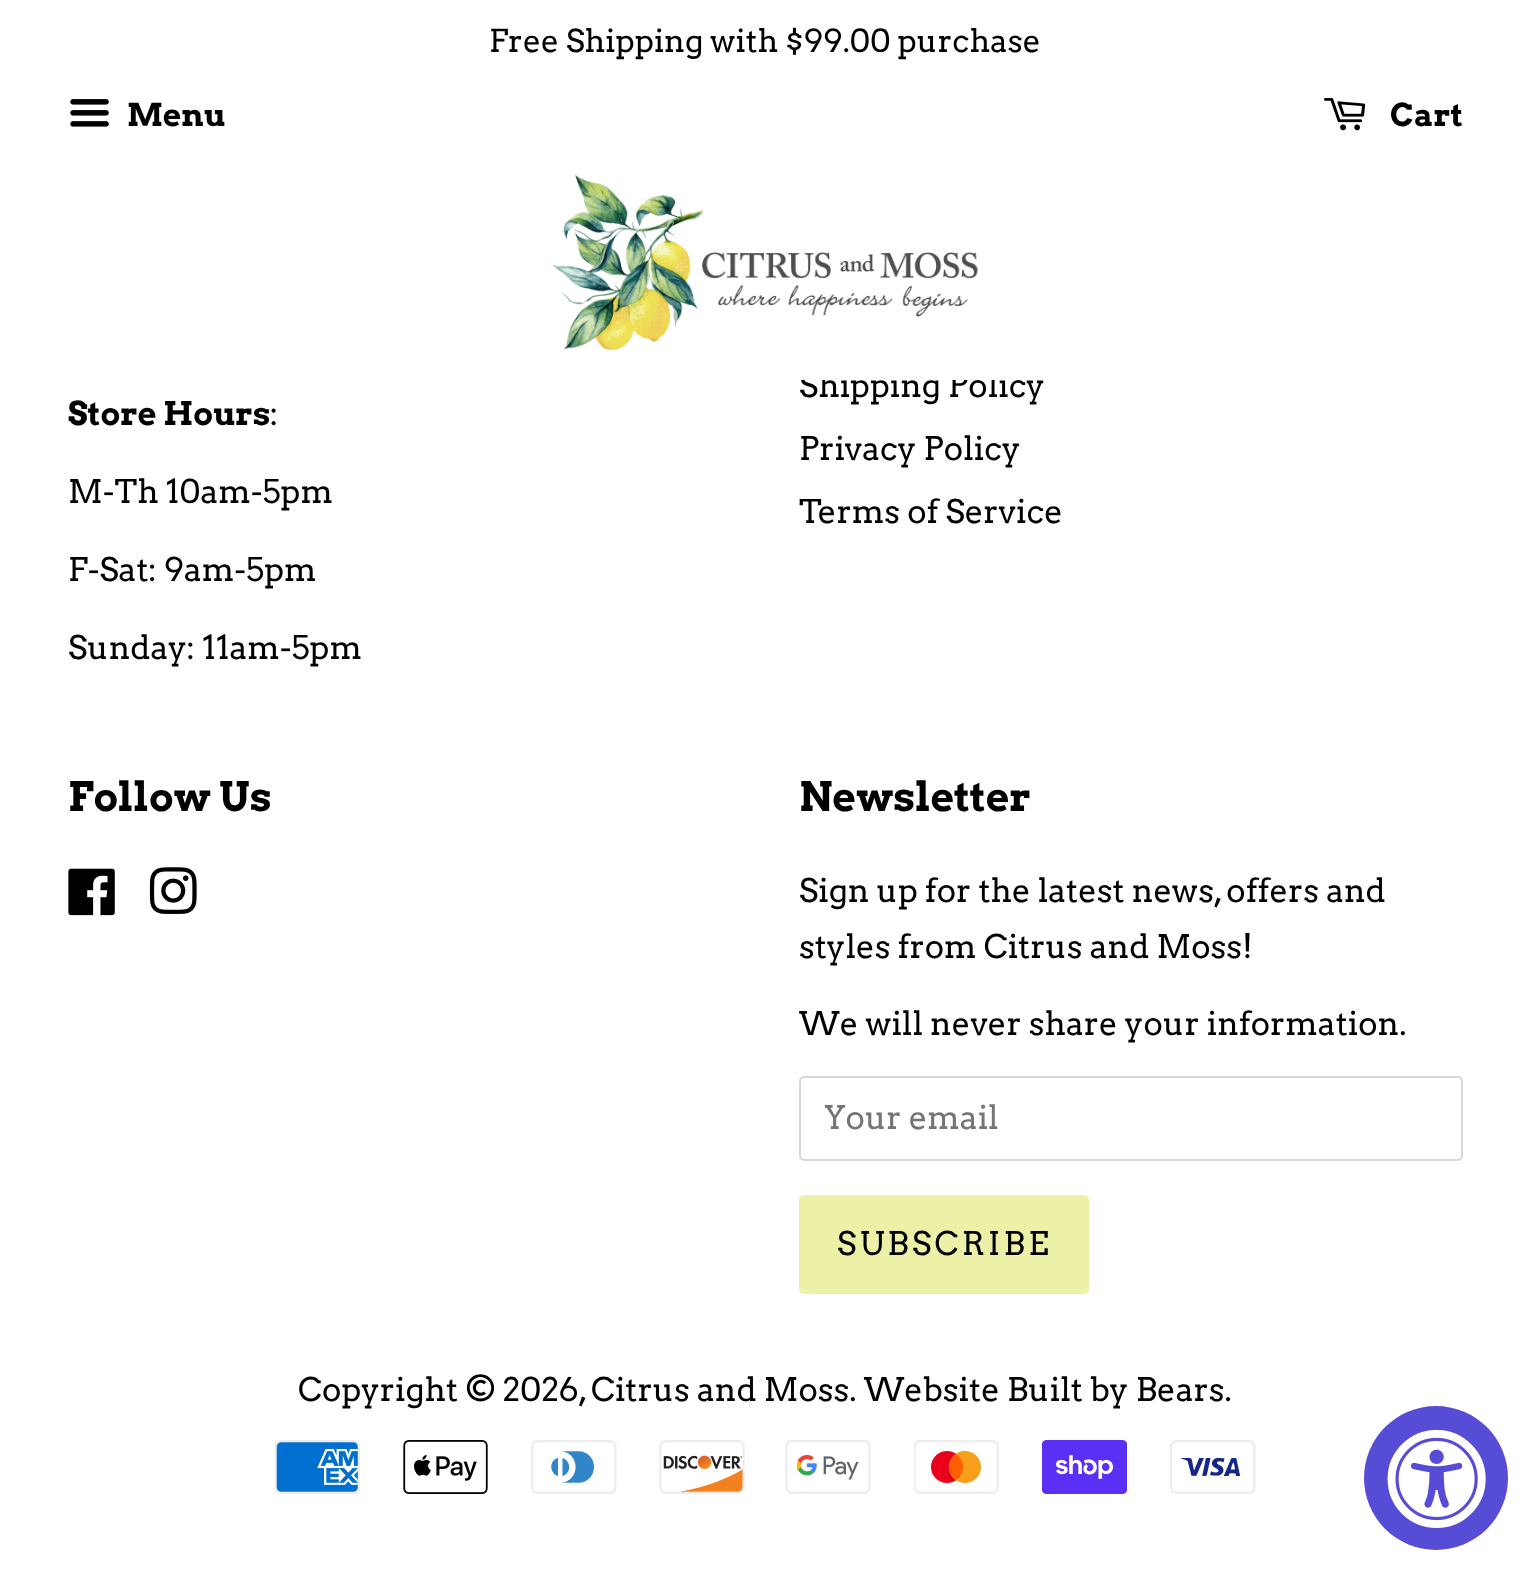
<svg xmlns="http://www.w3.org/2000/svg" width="1529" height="1572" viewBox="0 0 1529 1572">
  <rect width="100%" height="100%" fill="#ffffff"/>
  <text x="799" y="397" font-family="Arvo" font-size="32.5" fill="#000000">Shipping Policy</text>
  <rect x="800" y="372" width="206" height="8" fill="#ffffff"/>
  <text x="489" y="52" font-family="Arvo" font-size="31.5" fill="#000000">Free Shipping with $99.00 purchase</text>
  <image x="70" y="99" width="39" height="28" href="img1.png"/>
  <text x="127" y="126" font-family="Arvo" font-size="31.5" font-weight="bold" fill="#000000">Menu</text>
  <image x="1324" y="98" width="42" height="33" href="img2.png"/>
  <text x="1390" y="126" font-family="Arvo" font-size="31.5" font-weight="bold" fill="#000000">Cart</text>
  <image x="552" y="174" width="426" height="177" href="img3.png"/>
  <text x="68" y="425" font-family="Arvo" font-size="32.5" font-weight="bold" fill="#000000">Store Hours</text>
  <text x="270" y="425" font-family="Arvo" font-size="32.5" fill="#000000">:</text>
  <text x="68" y="503" font-family="Arvo" font-size="32.5" fill="#000000">M-Th 10am-5pm</text>
  <text x="68" y="581" font-family="Arvo" font-size="32.5" fill="#000000">F-Sat: 9am-5pm</text>
  <text x="68" y="659" font-family="Arvo" font-size="32.5" fill="#000000">Sunday: 11am-5pm</text>
  <text x="799" y="460" font-family="Arvo" font-size="32.5" fill="#000000">Privacy Policy</text>
  <text x="799" y="523" font-family="Arvo" font-size="32.5" fill="#000000">Terms of Service</text>
  <text x="68" y="811" font-family="Arvo" font-size="40.5" font-weight="bold" fill="#000000">Follow Us</text>
  <image x="68" y="868" width="47" height="48" href="img4.png"/>
  <image x="149" y="867" width="48" height="47" href="img5.png"/>
  <text x="799" y="811" font-family="Arvo" font-size="40.5" font-weight="bold" fill="#000000">Newsletter</text>
  <text x="799" y="902" font-family="Arvo" font-size="32.5" fill="#000000">Sign up for the latest news, offers and</text>
  <text x="799" y="958" font-family="Arvo" font-size="32.5" fill="#000000">styles from Citrus and Moss!</text>
  <text x="799" y="1035" font-family="Arvo" font-size="32.5" fill="#000000">We will never share your information.</text>
  <rect x="800" y="1077" width="662" height="83" rx="4" fill="none" stroke="#d9d9d9" stroke-width="2"/>
  <text x="824" y="1129" font-family="Arvo" font-size="32.5" fill="#757575">Your email</text>
  <rect x="799" y="1195" width="290" height="99" rx="5" fill="#ecf1a7"/>
  <text x="837" y="1255" font-family="Arvo" font-size="32.5" letter-spacing="3.25" fill="#000000">SUBSCRIBE</text>
  <text x="298" y="1401" font-family="Arvo" font-size="32.5" fill="#000000">Copyright © 2026,</text>
  <text x="591" y="1401" font-family="Arvo" font-size="32.5" fill="#000000">Citrus and Moss. Website Built by Bears.</text>
  <image x="275" y="1440" width="85" height="54" href="img6.png"/>
  <image x="403" y="1440" width="85" height="54" href="img7.png"/>
  <image x="531" y="1440" width="86" height="54" href="img8.png"/>
  <image x="659" y="1440" width="86" height="54" href="img9.png"/>
  <image x="785" y="1440" width="86" height="54" href="img10.png"/>
  <image x="914" y="1440" width="85" height="54" href="img11.png"/>
  <image x="1042" y="1440" width="85" height="54" href="img12.png"/>
  <image x="1170" y="1440" width="86" height="54" href="img13.png"/>
  <circle cx="1436" cy="1478" r="72" fill="#574cd5"/>
  <image x="1387" y="1429" width="99" height="99" href="img14.png"/>
</svg>
